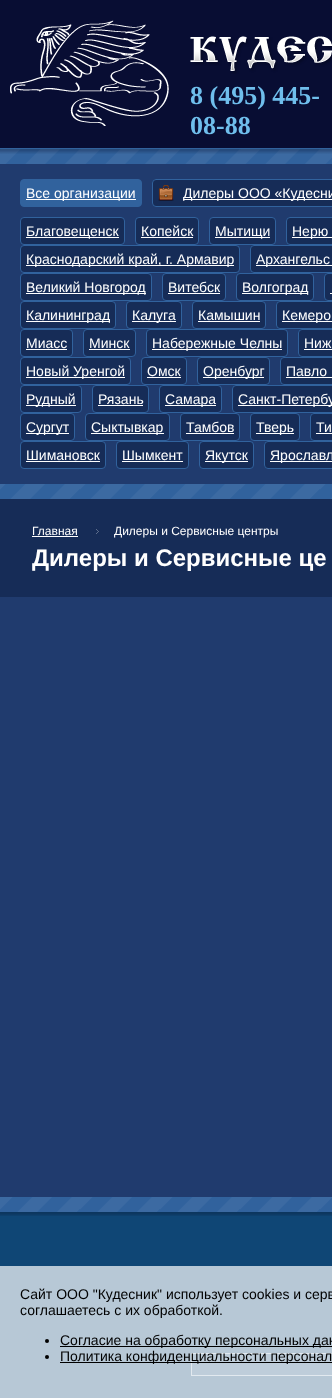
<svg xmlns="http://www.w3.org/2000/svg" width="332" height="1398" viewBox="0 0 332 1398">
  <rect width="100%" height="100%" fill="#31629d"/>
  <rect x="0" y="0" width="332" height="148" fill="#080d33"/>
  <image x="10" y="20" width="322" height="106" href="img1.png"/>
  <text x="190" y="104" font-family="Liberation Serif" font-size="26" font-weight="bold" fill="#6fbeec">8 (495) 445-</text>
  <text x="190" y="134" font-family="Liberation Serif" font-size="26" font-weight="bold" fill="#6fbeec">08-88</text>
  <image x="0" y="149" width="332" height="1063" href="img2.png"/>
  <image x="0" y="149" width="332" height="5" href="img3.png"/>
  <rect x="0" y="164" width="332" height="320" fill="#203b6e"/>
  <rect x="20.5" y="179.5" width="121" height="27" rx="3.5" fill="#31629d" stroke="#31629d"/>
  <rect x="26" y="199" width="110" height="1" fill="#ffffff"/>
  <text x="26" y="198" font-family="Liberation Sans" font-size="14" fill="#ffffff">Все организации</text>
  <path d="M156 179H332V207H156C154 207 152 205 152 203V183C152 181 154 179 156 179Z" fill="#162c57"/>
  <image x="158" y="185" width="16" height="16" href="img4.png"/>
  <rect x="152.5" y="179.5" width="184" height="27" rx="3.5" fill="none" stroke="#31629d"/>
  <rect x="183" y="199" width="149" height="1" fill="#ffffff"/>
  <text x="183" y="198" font-family="Liberation Sans" font-size="14" fill="#ffffff">Дилеры ООО «Кудесни</text>
  <rect x="20.5" y="217.5" width="104" height="27" rx="3.5" fill="#162c57" stroke="#31629d"/>
  <rect x="26" y="237" width="93" height="1" fill="#ffffff"/>
  <text x="26" y="236" font-family="Liberation Sans" font-size="14" fill="#ffffff">Благовещенск</text>
  <rect x="135.5" y="217.5" width="63" height="27" rx="3.5" fill="#162c57" stroke="#31629d"/>
  <text x="141" y="236" font-family="Liberation Sans" font-size="14" fill="#ffffff">Копейск</text>
  <rect x="141" y="237" width="52" height="1" fill="#ffffff"/>
  <rect x="209.5" y="217.5" width="66" height="27" rx="3.5" fill="#162c57" stroke="#31629d"/>
  <rect x="215" y="237" width="55" height="1" fill="#ffffff"/>
  <text x="215" y="236" font-family="Liberation Sans" font-size="14" fill="#ffffff">Мытищи</text>
  <path d="M290 217H332V245H290C288 245 286 243 286 241V221C286 219 288 217 290 217Z" fill="#162c57"/>
  <rect x="286.5" y="217.5" width="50" height="27" rx="3.5" fill="none" stroke="#31629d"/>
  <rect x="292" y="237" width="40" height="1" fill="#ffffff"/>
  <text x="292" y="236" font-family="Liberation Sans" font-size="14" fill="#ffffff">Нерю</text>
  <rect x="20.5" y="245.5" width="219" height="27" rx="3.5" fill="#162c57" stroke="#31629d"/>
  <rect x="26" y="265" width="208" height="1" fill="#ffffff"/>
  <text x="26" y="264" font-family="Liberation Sans" font-size="14" fill="#ffffff">Краснодарский край, г. Армавир</text>
  <path d="M254 245H332V273H254C252 273 250 271 250 269V249C250 247 252 245 254 245Z" fill="#162c57"/>
  <rect x="250.5" y="245.5" width="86" height="27" rx="3.5" fill="none" stroke="#31629d"/>
  <rect x="256" y="265" width="76" height="1" fill="#ffffff"/>
  <text x="256" y="264" font-family="Liberation Sans" font-size="14" fill="#ffffff">Архангельс</text>
  <rect x="20.5" y="273.5" width="131" height="27" rx="3.5" fill="#162c57" stroke="#31629d"/>
  <rect x="26" y="293" width="120" height="1" fill="#ffffff"/>
  <text x="26" y="292" font-family="Liberation Sans" font-size="14" fill="#ffffff">Великий Новгород</text>
  <rect x="162.5" y="273.5" width="63" height="27" rx="3.5" fill="#162c57" stroke="#31629d"/>
  <text x="168" y="292" font-family="Liberation Sans" font-size="14" fill="#ffffff">Витебск</text>
  <rect x="168" y="293" width="52" height="1" fill="#ffffff"/>
  <rect x="236.5" y="273.5" width="77" height="27" rx="3.5" fill="#162c57" stroke="#31629d"/>
  <rect x="242" y="293" width="66" height="1" fill="#ffffff"/>
  <text x="242" y="292" font-family="Liberation Sans" font-size="14" fill="#ffffff">Волгоград</text>
  <path d="M328 273H332V301H328C326 301 324 299 324 297V277C324 275 326 273 328 273Z" fill="#162c57"/>
  <rect x="324.5" y="273.5" width="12" height="27" rx="3.5" fill="none" stroke="#31629d"/>
  <rect x="330" y="293" width="2" height="1" fill="#ffffff"/>
  <rect x="20.5" y="301.5" width="95" height="27" rx="3.5" fill="#162c57" stroke="#31629d"/>
  <rect x="26" y="321" width="84" height="1" fill="#ffffff"/>
  <text x="26" y="320" font-family="Liberation Sans" font-size="14" fill="#ffffff">Калининград</text>
  <rect x="126.5" y="301.5" width="55" height="27" rx="3.5" fill="#162c57" stroke="#31629d"/>
  <rect x="132" y="321" width="44" height="1" fill="#ffffff"/>
  <text x="132" y="320" font-family="Liberation Sans" font-size="14" fill="#ffffff">Калуга</text>
  <rect x="192.5" y="301.5" width="73" height="27" rx="3.5" fill="#162c57" stroke="#31629d"/>
  <text x="198" y="320" font-family="Liberation Sans" font-size="14" fill="#ffffff">Камышин</text>
  <rect x="198" y="321" width="62" height="1" fill="#ffffff"/>
  <path d="M280 301H332V329H280C278 329 276 327 276 325V305C276 303 278 301 280 301Z" fill="#162c57"/>
  <rect x="276.5" y="301.5" width="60" height="27" rx="3.5" fill="none" stroke="#31629d"/>
  <rect x="282" y="321" width="50" height="1" fill="#ffffff"/>
  <text x="282" y="320" font-family="Liberation Sans" font-size="14" fill="#ffffff">Кемеро</text>
  <rect x="20.5" y="329.5" width="52" height="27" rx="3.5" fill="#162c57" stroke="#31629d"/>
  <text x="26" y="348" font-family="Liberation Sans" font-size="14" fill="#ffffff">Миасс</text>
  <rect x="26" y="349" width="41" height="1" fill="#ffffff"/>
  <rect x="83.5" y="329.5" width="52" height="27" rx="3.5" fill="#162c57" stroke="#31629d"/>
  <text x="89" y="348" font-family="Liberation Sans" font-size="14" fill="#ffffff">Минск</text>
  <rect x="89" y="349" width="41" height="1" fill="#ffffff"/>
  <rect x="146.5" y="329.5" width="141" height="27" rx="3.5" fill="#162c57" stroke="#31629d"/>
  <rect x="152" y="349" width="130" height="1" fill="#ffffff"/>
  <text x="152" y="348" font-family="Liberation Sans" font-size="14" fill="#ffffff">Набережные Челны</text>
  <path d="M302 329H332V357H302C300 357 298 355 298 353V333C298 331 300 329 302 329Z" fill="#162c57"/>
  <rect x="298.5" y="329.5" width="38" height="27" rx="3.5" fill="none" stroke="#31629d"/>
  <text x="304" y="348" font-family="Liberation Sans" font-size="14" fill="#ffffff">Ниж</text>
  <rect x="304" y="349" width="28" height="1" fill="#ffffff"/>
  <rect x="20.5" y="357.5" width="110" height="27" rx="3.5" fill="#162c57" stroke="#31629d"/>
  <rect x="26" y="377" width="99" height="1" fill="#ffffff"/>
  <text x="26" y="376" font-family="Liberation Sans" font-size="14" fill="#ffffff">Новый Уренгой</text>
  <rect x="141.5" y="357.5" width="45" height="27" rx="3.5" fill="#162c57" stroke="#31629d"/>
  <text x="147" y="376" font-family="Liberation Sans" font-size="14" fill="#ffffff">Омск</text>
  <rect x="147" y="377" width="34" height="1" fill="#ffffff"/>
  <rect x="197.5" y="357.5" width="72" height="27" rx="3.5" fill="#162c57" stroke="#31629d"/>
  <rect x="203" y="377" width="61" height="1" fill="#ffffff"/>
  <text x="203" y="376" font-family="Liberation Sans" font-size="14" fill="#ffffff">Оренбург</text>
  <path d="M284 357H332V385H284C282 385 280 383 280 381V361C280 359 282 357 284 357Z" fill="#162c57"/>
  <rect x="280.5" y="357.5" width="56" height="27" rx="3.5" fill="none" stroke="#31629d"/>
  <text x="286" y="376" font-family="Liberation Sans" font-size="14" fill="#ffffff">Павло</text>
  <rect x="286" y="377" width="46" height="1" fill="#ffffff"/>
  <rect x="20.5" y="385.5" width="61" height="27" rx="3.5" fill="#162c57" stroke="#31629d"/>
  <rect x="26" y="405" width="50" height="1" fill="#ffffff"/>
  <text x="26" y="404" font-family="Liberation Sans" font-size="14" fill="#ffffff">Рудный</text>
  <rect x="92.5" y="385.5" width="56" height="27" rx="3.5" fill="#162c57" stroke="#31629d"/>
  <text x="98" y="404" font-family="Liberation Sans" font-size="14" fill="#ffffff">Рязань</text>
  <rect x="98" y="405" width="45" height="1" fill="#ffffff"/>
  <rect x="159.5" y="385.5" width="62" height="27" rx="3.5" fill="#162c57" stroke="#31629d"/>
  <rect x="165" y="405" width="51" height="1" fill="#ffffff"/>
  <text x="165" y="404" font-family="Liberation Sans" font-size="14" fill="#ffffff">Самара</text>
  <path d="M236 385H332V413H236C234 413 232 411 232 409V389C232 387 234 385 236 385Z" fill="#162c57"/>
  <rect x="232.5" y="385.5" width="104" height="27" rx="3.5" fill="none" stroke="#31629d"/>
  <rect x="238" y="405" width="94" height="1" fill="#ffffff"/>
  <text x="238" y="404" font-family="Liberation Sans" font-size="14" fill="#ffffff">Санкт-Петербу</text>
  <rect x="20.5" y="413.5" width="54" height="27" rx="3.5" fill="#162c57" stroke="#31629d"/>
  <rect x="26" y="433" width="43" height="1" fill="#ffffff"/>
  <text x="26" y="432" font-family="Liberation Sans" font-size="14" fill="#ffffff">Сургут</text>
  <rect x="85.5" y="413.5" width="84" height="27" rx="3.5" fill="#162c57" stroke="#31629d"/>
  <rect x="91" y="433" width="73" height="1" fill="#ffffff"/>
  <text x="91" y="432" font-family="Liberation Sans" font-size="14" fill="#ffffff">Сыктывкар</text>
  <rect x="180.5" y="413.5" width="59" height="27" rx="3.5" fill="#162c57" stroke="#31629d"/>
  <text x="186" y="432" font-family="Liberation Sans" font-size="14" fill="#ffffff">Тамбов</text>
  <rect x="186" y="433" width="48" height="1" fill="#ffffff"/>
  <rect x="250.5" y="413.5" width="49" height="27" rx="3.5" fill="#162c57" stroke="#31629d"/>
  <rect x="256" y="433" width="38" height="1" fill="#ffffff"/>
  <text x="256" y="432" font-family="Liberation Sans" font-size="14" fill="#ffffff">Тверь</text>
  <path d="M314 413H332V441H314C312 441 310 439 310 437V417C310 415 312 413 314 413Z" fill="#162c57"/>
  <rect x="310.5" y="413.5" width="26" height="27" rx="3.5" fill="none" stroke="#31629d"/>
  <text x="316" y="432" font-family="Liberation Sans" font-size="14" fill="#ffffff">Ти</text>
  <rect x="316" y="433" width="16" height="1" fill="#ffffff"/>
  <rect x="20.5" y="441.5" width="85" height="27" rx="3.5" fill="#162c57" stroke="#31629d"/>
  <text x="26" y="460" font-family="Liberation Sans" font-size="14" fill="#ffffff">Шимановск</text>
  <rect x="26" y="461" width="74" height="1" fill="#ffffff"/>
  <rect x="116.5" y="441.5" width="72" height="27" rx="3.5" fill="#162c57" stroke="#31629d"/>
  <text x="122" y="460" font-family="Liberation Sans" font-size="14" fill="#ffffff">Шымкент</text>
  <rect x="122" y="461" width="61" height="1" fill="#ffffff"/>
  <rect x="199.5" y="441.5" width="54" height="27" rx="3.5" fill="#162c57" stroke="#31629d"/>
  <rect x="205" y="461" width="43" height="1" fill="#ffffff"/>
  <text x="205" y="460" font-family="Liberation Sans" font-size="14" fill="#ffffff">Якутск</text>
  <path d="M268 441H332V469H268C266 469 264 467 264 465V445C264 443 266 441 268 441Z" fill="#162c57"/>
  <rect x="264.5" y="441.5" width="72" height="27" rx="3.5" fill="none" stroke="#31629d"/>
  <rect x="270" y="461" width="62" height="1" fill="#ffffff"/>
  <text x="270" y="460" font-family="Liberation Sans" font-size="14" fill="#ffffff">Ярославл</text>
  <rect x="0" y="499" width="332" height="98" fill="#162c57"/>
  <text x="32" y="535" font-family="Liberation Sans" font-size="12" fill="#ffffff">Главная</text>
  <rect x="32" y="536" width="46" height="1" fill="#ffffff"/>
  <image x="96" y="529" width="3" height="5" href="img5.png"/>
  <text x="114" y="535" font-family="Liberation Sans" font-size="12" fill="#ffffff">Дилеры и Сервисные центры</text>
  <text x="32" y="566" font-family="Liberation Sans" font-size="24" font-weight="bold" fill="#ffffff">Дилеры и Сервисные це</text>
  <rect x="0" y="597" width="332" height="600" fill="#203b6e"/>
  <rect x="0" y="1216" width="332" height="182" fill="#0f4675"/>
  <image x="0" y="1212" width="332" height="4" href="img6.png"/>
  <rect x="191.5" y="1353.5" width="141" height="22" fill="#275983" stroke="#9fb5c8"/>
  <rect x="0" y="1266" width="332" height="132" fill="#ffffff" fill-opacity="0.7"/>
  <text x="20" y="1299" font-family="Liberation Sans" font-size="14" fill="#000000">Сайт ООО "Кудесник" использует cookies и серв</text>
  <text x="20" y="1315" font-family="Liberation Sans" font-size="14" fill="#000000">соглашаетесь с их обработкой.</text>
  <circle cx="47" cy="1341" r="2" fill="#000000"/>
  <rect x="60" y="1346" width="272" height="1" fill="#000000"/>
  <text x="60" y="1345" font-family="Liberation Sans" font-size="14" fill="#000000">Согласие на обработку персональных дан</text>
  <circle cx="47" cy="1357" r="2" fill="#000000"/>
  <rect x="60" y="1362" width="272" height="1" fill="#000000"/>
  <text x="60" y="1361" font-family="Liberation Sans" font-size="14" fill="#000000">Политика конфиденциальности персонал</text>
</svg>
